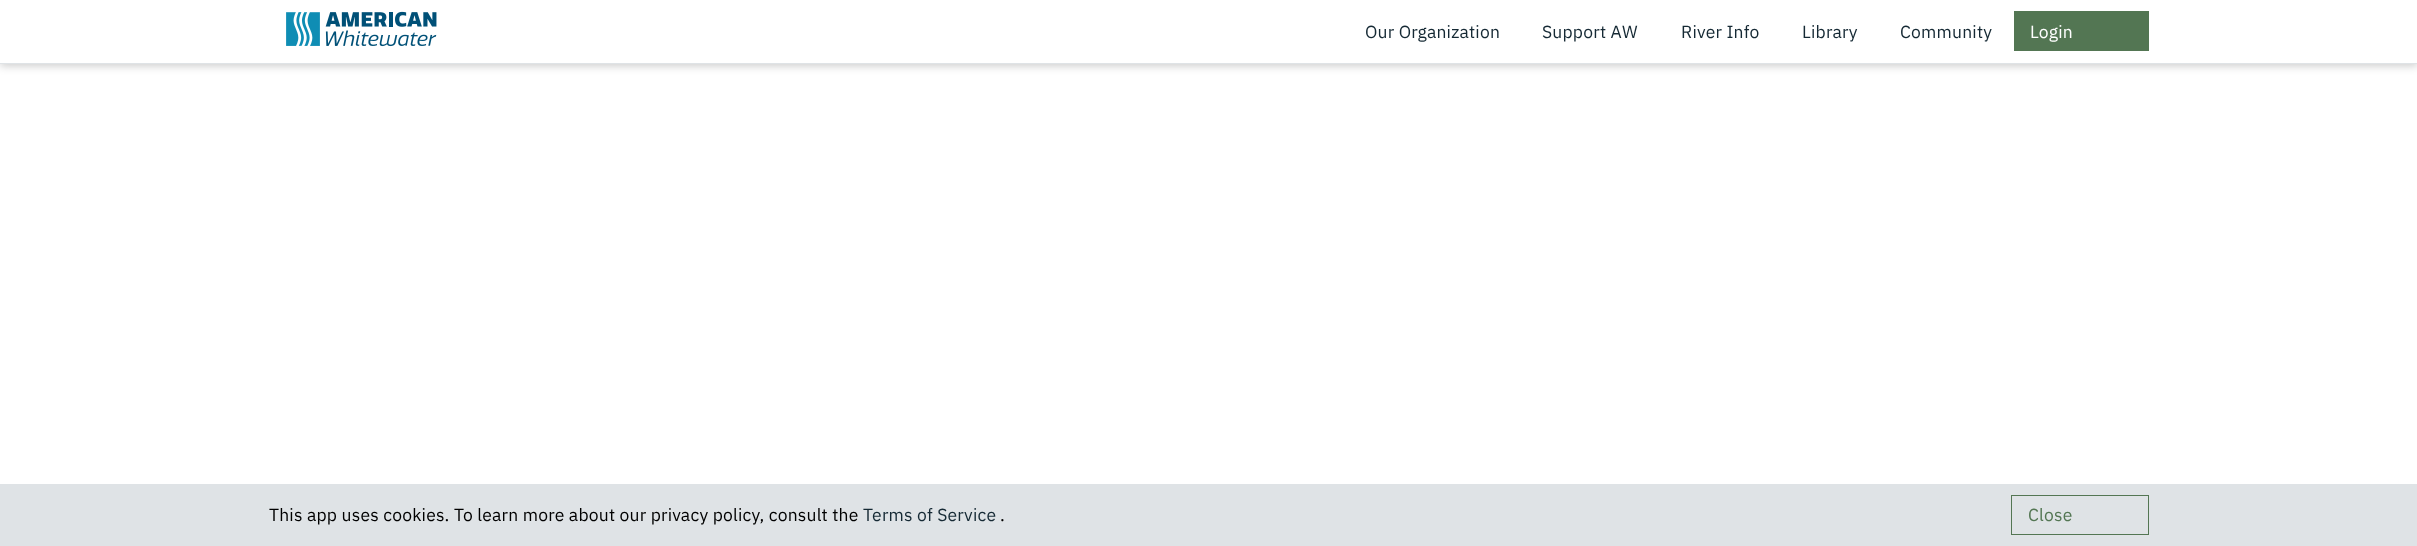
<svg xmlns="http://www.w3.org/2000/svg" width="2417" height="546" viewBox="0 0 2417 546">
  <defs>
    <filter id="blur1" x="-50%" y="-200%" width="200%" height="500%"><feGaussianBlur stdDeviation="4"/></filter>
  </defs>
  <rect width="100%" height="100%" fill="#ffffff"/>
  <rect x="0" y="3" width="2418" height="63" fill="#000000" fill-opacity="0.2" filter="url(#blur1)"/>
  <rect x="0" y="0" width="2417" height="63" fill="#ffffff"/>
  <rect x="0" y="63" width="2417" height="1" fill="#dfe3e6"/>
  <image x="286" y="11" width="151" height="36" href="img1.png"/>
  <text x="1365" y="38" font-family="IBM Plex Sans" font-size="17.5" letter-spacing="0.2" fill="#152934">Our Organization</text>
  <text x="1542" y="38" font-family="IBM Plex Sans" font-size="17.5" letter-spacing="0.2" fill="#152934">Support AW</text>
  <text x="1681" y="38" font-family="IBM Plex Sans" font-size="17.5" letter-spacing="0.2" fill="#152934">River Info</text>
  <text x="1802" y="38" font-family="IBM Plex Sans" font-size="17.5" letter-spacing="0.2" fill="#152934">Library</text>
  <text x="1900" y="38" font-family="IBM Plex Sans" font-size="17.5" letter-spacing="0.2" fill="#152934">Community</text>
  <rect x="2014" y="11" width="135" height="40" fill="#537653"/>
  <text x="2030" y="38" font-family="IBM Plex Sans" font-size="17.5" letter-spacing="0.2" fill="#ffffff">Login</text>
  <rect x="0" y="484" width="2417" height="62" fill="#dfe3e6"/>
  <text x="269" y="521" font-family="IBM Plex Sans" font-size="17.5" letter-spacing="0.2" fill="#000000">This app uses cookies. To learn more about our privacy policy, consult the</text>
  <text x="863" y="521" font-family="IBM Plex Sans" font-size="17.5" letter-spacing="0.2" fill="#152934">Terms of Service</text>
  <text x="1000" y="521" font-family="IBM Plex Sans" font-size="17.5" letter-spacing="0.2" fill="#000000">.</text>
  <rect x="2011.5" y="495.5" width="137" height="39" fill="none" stroke="#537653"/>
  <text x="2028" y="521" font-family="IBM Plex Sans" font-size="17.5" letter-spacing="0.2" fill="#537653">Close</text>
</svg>
